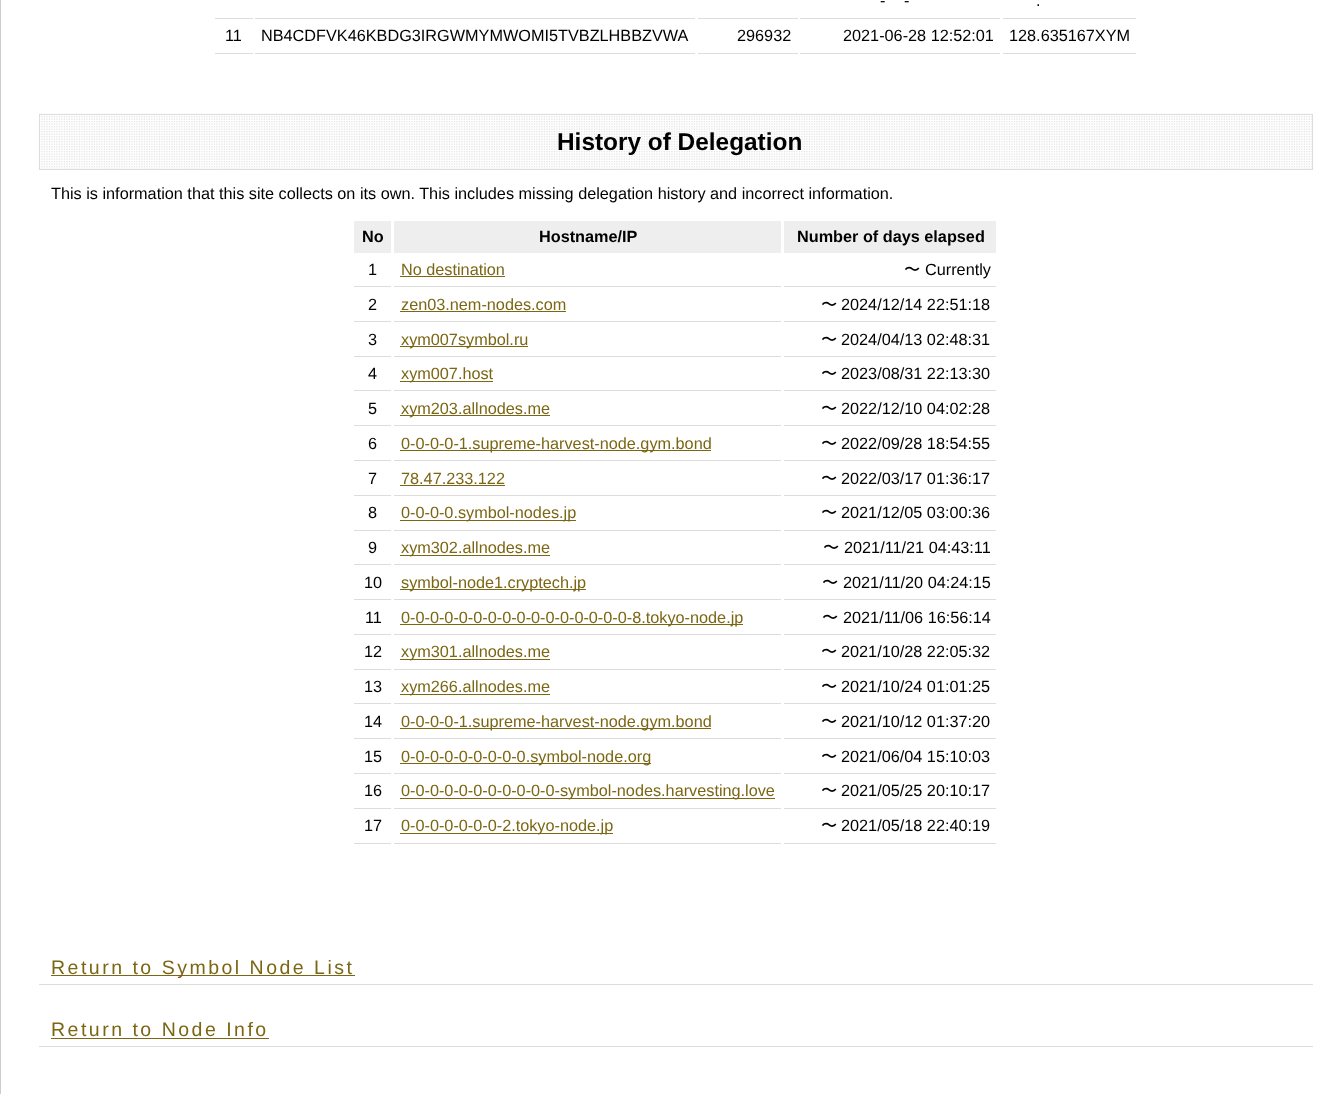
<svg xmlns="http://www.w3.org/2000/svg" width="1338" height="1094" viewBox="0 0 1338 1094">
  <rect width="100%" height="100%" fill="#ffffff"/>
  <rect x="0" y="0" width="1" height="1094" fill="#cccccc"/>
  <rect x="800" y="18" width="200" height="1" fill="#dddddd"/>
  <text x="880" y="6" font-family="Liberation Sans" font-size="16.25" fill="#000000">-</text>
  <text x="904" y="6" font-family="Liberation Sans" font-size="16.25" fill="#000000">-</text>
  <rect x="1003" y="18" width="133" height="1" fill="#dddddd"/>
  <text x="1036" y="6" font-family="Liberation Sans" font-size="16.25" fill="#000000">.</text>
  <rect x="215" y="18" width="38" height="1" fill="#dddddd"/>
  <rect x="255" y="18" width="440" height="1" fill="#dddddd"/>
  <rect x="698" y="18" width="100" height="1" fill="#dddddd"/>
  <rect x="215" y="53" width="38" height="1" fill="#dddddd"/>
  <text x="225" y="41" font-family="Liberation Sans" font-size="16.25" fill="#000000">11</text>
  <rect x="255" y="53" width="440" height="1" fill="#dddddd"/>
  <text x="261" y="41" font-family="Liberation Sans" font-size="16.25" fill="#000000">NB4CDFVK46KBDG3IRGWMYMWOMI5TVBZLHBBZVWA</text>
  <rect x="698" y="53" width="100" height="1" fill="#dddddd"/>
  <text x="737" y="41" font-family="Liberation Sans" font-size="16.25" fill="#000000">296932</text>
  <rect x="800" y="53" width="200" height="1" fill="#dddddd"/>
  <text x="843" y="41" font-family="Liberation Sans" font-size="16.25" fill="#000000">2021-06-28 12:52:01</text>
  <rect x="1003" y="53" width="133" height="1" fill="#dddddd"/>
  <text x="1009" y="41" font-family="Liberation Sans" font-size="16.25" fill="#000000">128.635167XYM</text>
  <image x="39" y="113" width="1274" height="56" href="img1.png"/>
  <rect x="39.5" y="114.5" width="1273" height="55" fill="none" stroke="#dddddd"/>
  <text x="557" y="150" font-family="Liberation Sans" font-size="24.4" font-weight="bold" fill="#000000">History of Delegation</text>
  <text x="51" y="199" font-family="Liberation Sans" font-size="16.25" fill="#000000">This is information that this site collects on its own. This includes missing delegation history and incorrect information.</text>
  <rect x="354" y="221" width="37" height="32" fill="#eeeeee"/>
  <text x="362" y="242" font-family="Liberation Sans" font-size="16.25" font-weight="bold" fill="#000000">No</text>
  <rect x="394" y="221" width="387" height="32" fill="#eeeeee"/>
  <text x="539" y="242" font-family="Liberation Sans" font-size="16.25" font-weight="bold" fill="#000000">Hostname/IP</text>
  <rect x="784" y="221" width="212" height="32" fill="#eeeeee"/>
  <text x="797" y="242" font-family="Liberation Sans" font-size="16.25" font-weight="bold" fill="#000000">Number of days elapsed</text>
  <rect x="354" y="286" width="37" height="1" fill="#dddddd"/>
  <text x="368" y="275" font-family="Liberation Sans" font-size="16.25" fill="#000000">1</text>
  <rect x="394" y="286" width="387" height="1" fill="#dddddd"/>
  <text x="401" y="275" font-family="Liberation Sans" font-size="16.25" fill="#7b6613">No destination</text>
  <rect x="400" y="276" width="105" height="1" fill="#7b6613"/>
  <rect x="784" y="286" width="212" height="1" fill="#dddddd"/>
  <text x="904" y="275" font-family="WenQuanYi Zen Hei" font-size="16.25" font-weight="500" fill="#000000">〜</text>
  <text x="925" y="275" font-family="Liberation Sans" font-size="16.25" fill="#000000">Currently</text>
  <rect x="354" y="321" width="37" height="1" fill="#dddddd"/>
  <text x="368" y="310" font-family="Liberation Sans" font-size="16.25" fill="#000000">2</text>
  <rect x="394" y="321" width="387" height="1" fill="#dddddd"/>
  <text x="401" y="310" font-family="Liberation Sans" font-size="16.25" fill="#7b6613">zen03.nem-nodes.com</text>
  <rect x="400" y="311" width="166" height="1" fill="#7b6613"/>
  <rect x="784" y="321" width="212" height="1" fill="#dddddd"/>
  <text x="821" y="310" font-family="WenQuanYi Zen Hei" font-size="16.25" font-weight="500" fill="#000000">〜</text>
  <text x="841" y="310" font-family="Liberation Sans" font-size="16.25" fill="#000000">2024/12/14 22:51:18</text>
  <rect x="354" y="356" width="37" height="1" fill="#dddddd"/>
  <text x="368" y="345" font-family="Liberation Sans" font-size="16.25" fill="#000000">3</text>
  <rect x="394" y="356" width="387" height="1" fill="#dddddd"/>
  <rect x="400" y="346" width="128" height="1" fill="#7b6613"/>
  <text x="401" y="345" font-family="Liberation Sans" font-size="16.25" fill="#7b6613">xym007symbol.ru</text>
  <rect x="784" y="356" width="212" height="1" fill="#dddddd"/>
  <text x="821" y="345" font-family="WenQuanYi Zen Hei" font-size="16.25" font-weight="500" fill="#000000">〜</text>
  <text x="841" y="345" font-family="Liberation Sans" font-size="16.25" fill="#000000">2024/04/13 02:48:31</text>
  <rect x="354" y="390" width="37" height="1" fill="#dddddd"/>
  <text x="368" y="379" font-family="Liberation Sans" font-size="16.25" fill="#000000">4</text>
  <rect x="394" y="390" width="387" height="1" fill="#dddddd"/>
  <rect x="400" y="381" width="93" height="1" fill="#7b6613"/>
  <text x="401" y="379" font-family="Liberation Sans" font-size="16.25" fill="#7b6613">xym007.host</text>
  <rect x="784" y="390" width="212" height="1" fill="#dddddd"/>
  <text x="821" y="379" font-family="WenQuanYi Zen Hei" font-size="16.25" font-weight="500" fill="#000000">〜</text>
  <text x="841" y="379" font-family="Liberation Sans" font-size="16.25" fill="#000000">2023/08/31 22:13:30</text>
  <rect x="354" y="425" width="37" height="1" fill="#dddddd"/>
  <text x="368" y="414" font-family="Liberation Sans" font-size="16.25" fill="#000000">5</text>
  <rect x="394" y="425" width="387" height="1" fill="#dddddd"/>
  <rect x="400" y="415" width="150" height="1" fill="#7b6613"/>
  <text x="401" y="414" font-family="Liberation Sans" font-size="16.25" fill="#7b6613">xym203.allnodes.me</text>
  <rect x="784" y="425" width="212" height="1" fill="#dddddd"/>
  <text x="821" y="414" font-family="WenQuanYi Zen Hei" font-size="16.25" font-weight="500" fill="#000000">〜</text>
  <text x="841" y="414" font-family="Liberation Sans" font-size="16.25" fill="#000000">2022/12/10 04:02:28</text>
  <rect x="354" y="460" width="37" height="1" fill="#dddddd"/>
  <text x="368" y="449" font-family="Liberation Sans" font-size="16.25" fill="#000000">6</text>
  <rect x="394" y="460" width="387" height="1" fill="#dddddd"/>
  <rect x="400" y="450" width="311" height="1" fill="#7b6613"/>
  <text x="401" y="449" font-family="Liberation Sans" font-size="16.25" fill="#7b6613">0-0-0-0-1.supreme-harvest-node.gym.bond</text>
  <rect x="784" y="460" width="212" height="1" fill="#dddddd"/>
  <text x="821" y="449" font-family="WenQuanYi Zen Hei" font-size="16.25" font-weight="500" fill="#000000">〜</text>
  <text x="841" y="449" font-family="Liberation Sans" font-size="16.25" fill="#000000">2022/09/28 18:54:55</text>
  <rect x="354" y="495" width="37" height="1" fill="#dddddd"/>
  <text x="368" y="484" font-family="Liberation Sans" font-size="16.25" fill="#000000">7</text>
  <rect x="394" y="495" width="387" height="1" fill="#dddddd"/>
  <text x="401" y="484" font-family="Liberation Sans" font-size="16.25" fill="#7b6613">78.47.233.122</text>
  <rect x="400" y="485" width="105" height="1" fill="#7b6613"/>
  <rect x="784" y="495" width="212" height="1" fill="#dddddd"/>
  <text x="821" y="484" font-family="WenQuanYi Zen Hei" font-size="16.25" font-weight="500" fill="#000000">〜</text>
  <text x="841" y="484" font-family="Liberation Sans" font-size="16.25" fill="#000000">2022/03/17 01:36:17</text>
  <rect x="354" y="530" width="37" height="1" fill="#dddddd"/>
  <text x="368" y="518" font-family="Liberation Sans" font-size="16.25" fill="#000000">8</text>
  <rect x="394" y="530" width="387" height="1" fill="#dddddd"/>
  <rect x="400" y="520" width="176" height="1" fill="#7b6613"/>
  <text x="401" y="518" font-family="Liberation Sans" font-size="16.25" fill="#7b6613">0-0-0-0.symbol-nodes.jp</text>
  <rect x="784" y="530" width="212" height="1" fill="#dddddd"/>
  <text x="821" y="518" font-family="WenQuanYi Zen Hei" font-size="16.25" font-weight="500" fill="#000000">〜</text>
  <text x="841" y="518" font-family="Liberation Sans" font-size="16.25" fill="#000000">2021/12/05 03:00:36</text>
  <rect x="354" y="564" width="37" height="1" fill="#dddddd"/>
  <text x="368" y="553" font-family="Liberation Sans" font-size="16.25" fill="#000000">9</text>
  <rect x="394" y="564" width="387" height="1" fill="#dddddd"/>
  <rect x="400" y="555" width="150" height="1" fill="#7b6613"/>
  <text x="401" y="553" font-family="Liberation Sans" font-size="16.25" fill="#7b6613">xym302.allnodes.me</text>
  <rect x="784" y="564" width="212" height="1" fill="#dddddd"/>
  <text x="823" y="553" font-family="WenQuanYi Zen Hei" font-size="16.25" font-weight="500" fill="#000000">〜</text>
  <text x="844" y="553" font-family="Liberation Sans" font-size="16.25" fill="#000000">2021/11/21 04:43:11</text>
  <rect x="354" y="599" width="37" height="1" fill="#dddddd"/>
  <text x="364" y="588" font-family="Liberation Sans" font-size="16.25" fill="#000000">10</text>
  <rect x="394" y="599" width="387" height="1" fill="#dddddd"/>
  <rect x="400" y="589" width="186" height="1" fill="#7b6613"/>
  <text x="401" y="588" font-family="Liberation Sans" font-size="16.25" fill="#7b6613">symbol-node1.cryptech.jp</text>
  <rect x="784" y="599" width="212" height="1" fill="#dddddd"/>
  <text x="822" y="588" font-family="WenQuanYi Zen Hei" font-size="16.25" font-weight="500" fill="#000000">〜</text>
  <text x="843" y="588" font-family="Liberation Sans" font-size="16.25" fill="#000000">2021/11/20 04:24:15</text>
  <rect x="354" y="634" width="37" height="1" fill="#dddddd"/>
  <text x="365" y="623" font-family="Liberation Sans" font-size="16.25" fill="#000000">11</text>
  <rect x="394" y="634" width="387" height="1" fill="#dddddd"/>
  <rect x="400" y="624" width="343" height="1" fill="#7b6613"/>
  <text x="401" y="623" font-family="Liberation Sans" font-size="16.25" fill="#7b6613">0-0-0-0-0-0-0-0-0-0-0-0-0-0-0-0-8.tokyo-node.jp</text>
  <rect x="784" y="634" width="212" height="1" fill="#dddddd"/>
  <text x="822" y="623" font-family="WenQuanYi Zen Hei" font-size="16.25" font-weight="500" fill="#000000">〜</text>
  <text x="843" y="623" font-family="Liberation Sans" font-size="16.25" fill="#000000">2021/11/06 16:56:14</text>
  <rect x="354" y="669" width="37" height="1" fill="#dddddd"/>
  <text x="364" y="657" font-family="Liberation Sans" font-size="16.25" fill="#000000">12</text>
  <rect x="394" y="669" width="387" height="1" fill="#dddddd"/>
  <rect x="400" y="659" width="150" height="1" fill="#7b6613"/>
  <text x="401" y="657" font-family="Liberation Sans" font-size="16.25" fill="#7b6613">xym301.allnodes.me</text>
  <rect x="784" y="669" width="212" height="1" fill="#dddddd"/>
  <text x="821" y="657" font-family="WenQuanYi Zen Hei" font-size="16.25" font-weight="500" fill="#000000">〜</text>
  <text x="841" y="657" font-family="Liberation Sans" font-size="16.25" fill="#000000">2021/10/28 22:05:32</text>
  <rect x="354" y="703" width="37" height="1" fill="#dddddd"/>
  <text x="364" y="692" font-family="Liberation Sans" font-size="16.25" fill="#000000">13</text>
  <rect x="394" y="703" width="387" height="1" fill="#dddddd"/>
  <rect x="400" y="694" width="150" height="1" fill="#7b6613"/>
  <text x="401" y="692" font-family="Liberation Sans" font-size="16.25" fill="#7b6613">xym266.allnodes.me</text>
  <rect x="784" y="703" width="212" height="1" fill="#dddddd"/>
  <text x="821" y="692" font-family="WenQuanYi Zen Hei" font-size="16.25" font-weight="500" fill="#000000">〜</text>
  <text x="841" y="692" font-family="Liberation Sans" font-size="16.25" fill="#000000">2021/10/24 01:01:25</text>
  <rect x="354" y="738" width="37" height="1" fill="#dddddd"/>
  <text x="364" y="727" font-family="Liberation Sans" font-size="16.25" fill="#000000">14</text>
  <rect x="394" y="738" width="387" height="1" fill="#dddddd"/>
  <rect x="400" y="728" width="311" height="1" fill="#7b6613"/>
  <text x="401" y="727" font-family="Liberation Sans" font-size="16.25" fill="#7b6613">0-0-0-0-1.supreme-harvest-node.gym.bond</text>
  <rect x="784" y="738" width="212" height="1" fill="#dddddd"/>
  <text x="821" y="727" font-family="WenQuanYi Zen Hei" font-size="16.25" font-weight="500" fill="#000000">〜</text>
  <text x="841" y="727" font-family="Liberation Sans" font-size="16.25" fill="#000000">2021/10/12 01:37:20</text>
  <rect x="354" y="773" width="37" height="1" fill="#dddddd"/>
  <text x="364" y="762" font-family="Liberation Sans" font-size="16.25" fill="#000000">15</text>
  <rect x="394" y="773" width="387" height="1" fill="#dddddd"/>
  <rect x="400" y="763" width="251" height="1" fill="#7b6613"/>
  <text x="401" y="762" font-family="Liberation Sans" font-size="16.25" fill="#7b6613">0-0-0-0-0-0-0-0-0.symbol-node.org</text>
  <rect x="784" y="773" width="212" height="1" fill="#dddddd"/>
  <text x="821" y="762" font-family="WenQuanYi Zen Hei" font-size="16.25" font-weight="500" fill="#000000">〜</text>
  <text x="841" y="762" font-family="Liberation Sans" font-size="16.25" fill="#000000">2021/06/04 15:10:03</text>
  <rect x="354" y="808" width="37" height="1" fill="#dddddd"/>
  <text x="364" y="796" font-family="Liberation Sans" font-size="16.25" fill="#000000">16</text>
  <rect x="394" y="808" width="387" height="1" fill="#dddddd"/>
  <rect x="400" y="798" width="375" height="1" fill="#7b6613"/>
  <text x="401" y="796" font-family="Liberation Sans" font-size="16.25" fill="#7b6613">0-0-0-0-0-0-0-0-0-0-0-symbol-nodes.harvesting.love</text>
  <rect x="784" y="808" width="212" height="1" fill="#dddddd"/>
  <text x="821" y="796" font-family="WenQuanYi Zen Hei" font-size="16.25" font-weight="500" fill="#000000">〜</text>
  <text x="841" y="796" font-family="Liberation Sans" font-size="16.25" fill="#000000">2021/05/25 20:10:17</text>
  <rect x="354" y="843" width="37" height="1" fill="#dddddd"/>
  <text x="364" y="831" font-family="Liberation Sans" font-size="16.25" fill="#000000">17</text>
  <rect x="394" y="843" width="387" height="1" fill="#dddddd"/>
  <rect x="400" y="833" width="213" height="1" fill="#7b6613"/>
  <text x="401" y="831" font-family="Liberation Sans" font-size="16.25" fill="#7b6613">0-0-0-0-0-0-0-2.tokyo-node.jp</text>
  <rect x="784" y="843" width="212" height="1" fill="#dddddd"/>
  <text x="821" y="831" font-family="WenQuanYi Zen Hei" font-size="16.25" font-weight="500" fill="#000000">〜</text>
  <text x="841" y="831" font-family="Liberation Sans" font-size="16.25" fill="#000000">2021/05/18 22:40:19</text>
  <rect x="39" y="984" width="1274" height="1" fill="#dddddd"/>
  <rect x="51" y="975" width="304" height="1" fill="#7b6613"/>
  <text x="51" y="974" font-family="Liberation Sans" font-size="19.5" letter-spacing="2.5" fill="#7b6613">Return to Symbol Node List</text>
  <rect x="39" y="1046" width="1274" height="1" fill="#dddddd"/>
  <text x="51" y="1036" font-family="Liberation Sans" font-size="19.5" letter-spacing="2.5" fill="#7b6613">Return to Node Info</text>
  <rect x="51" y="1038" width="218" height="1" fill="#7b6613"/>
</svg>
